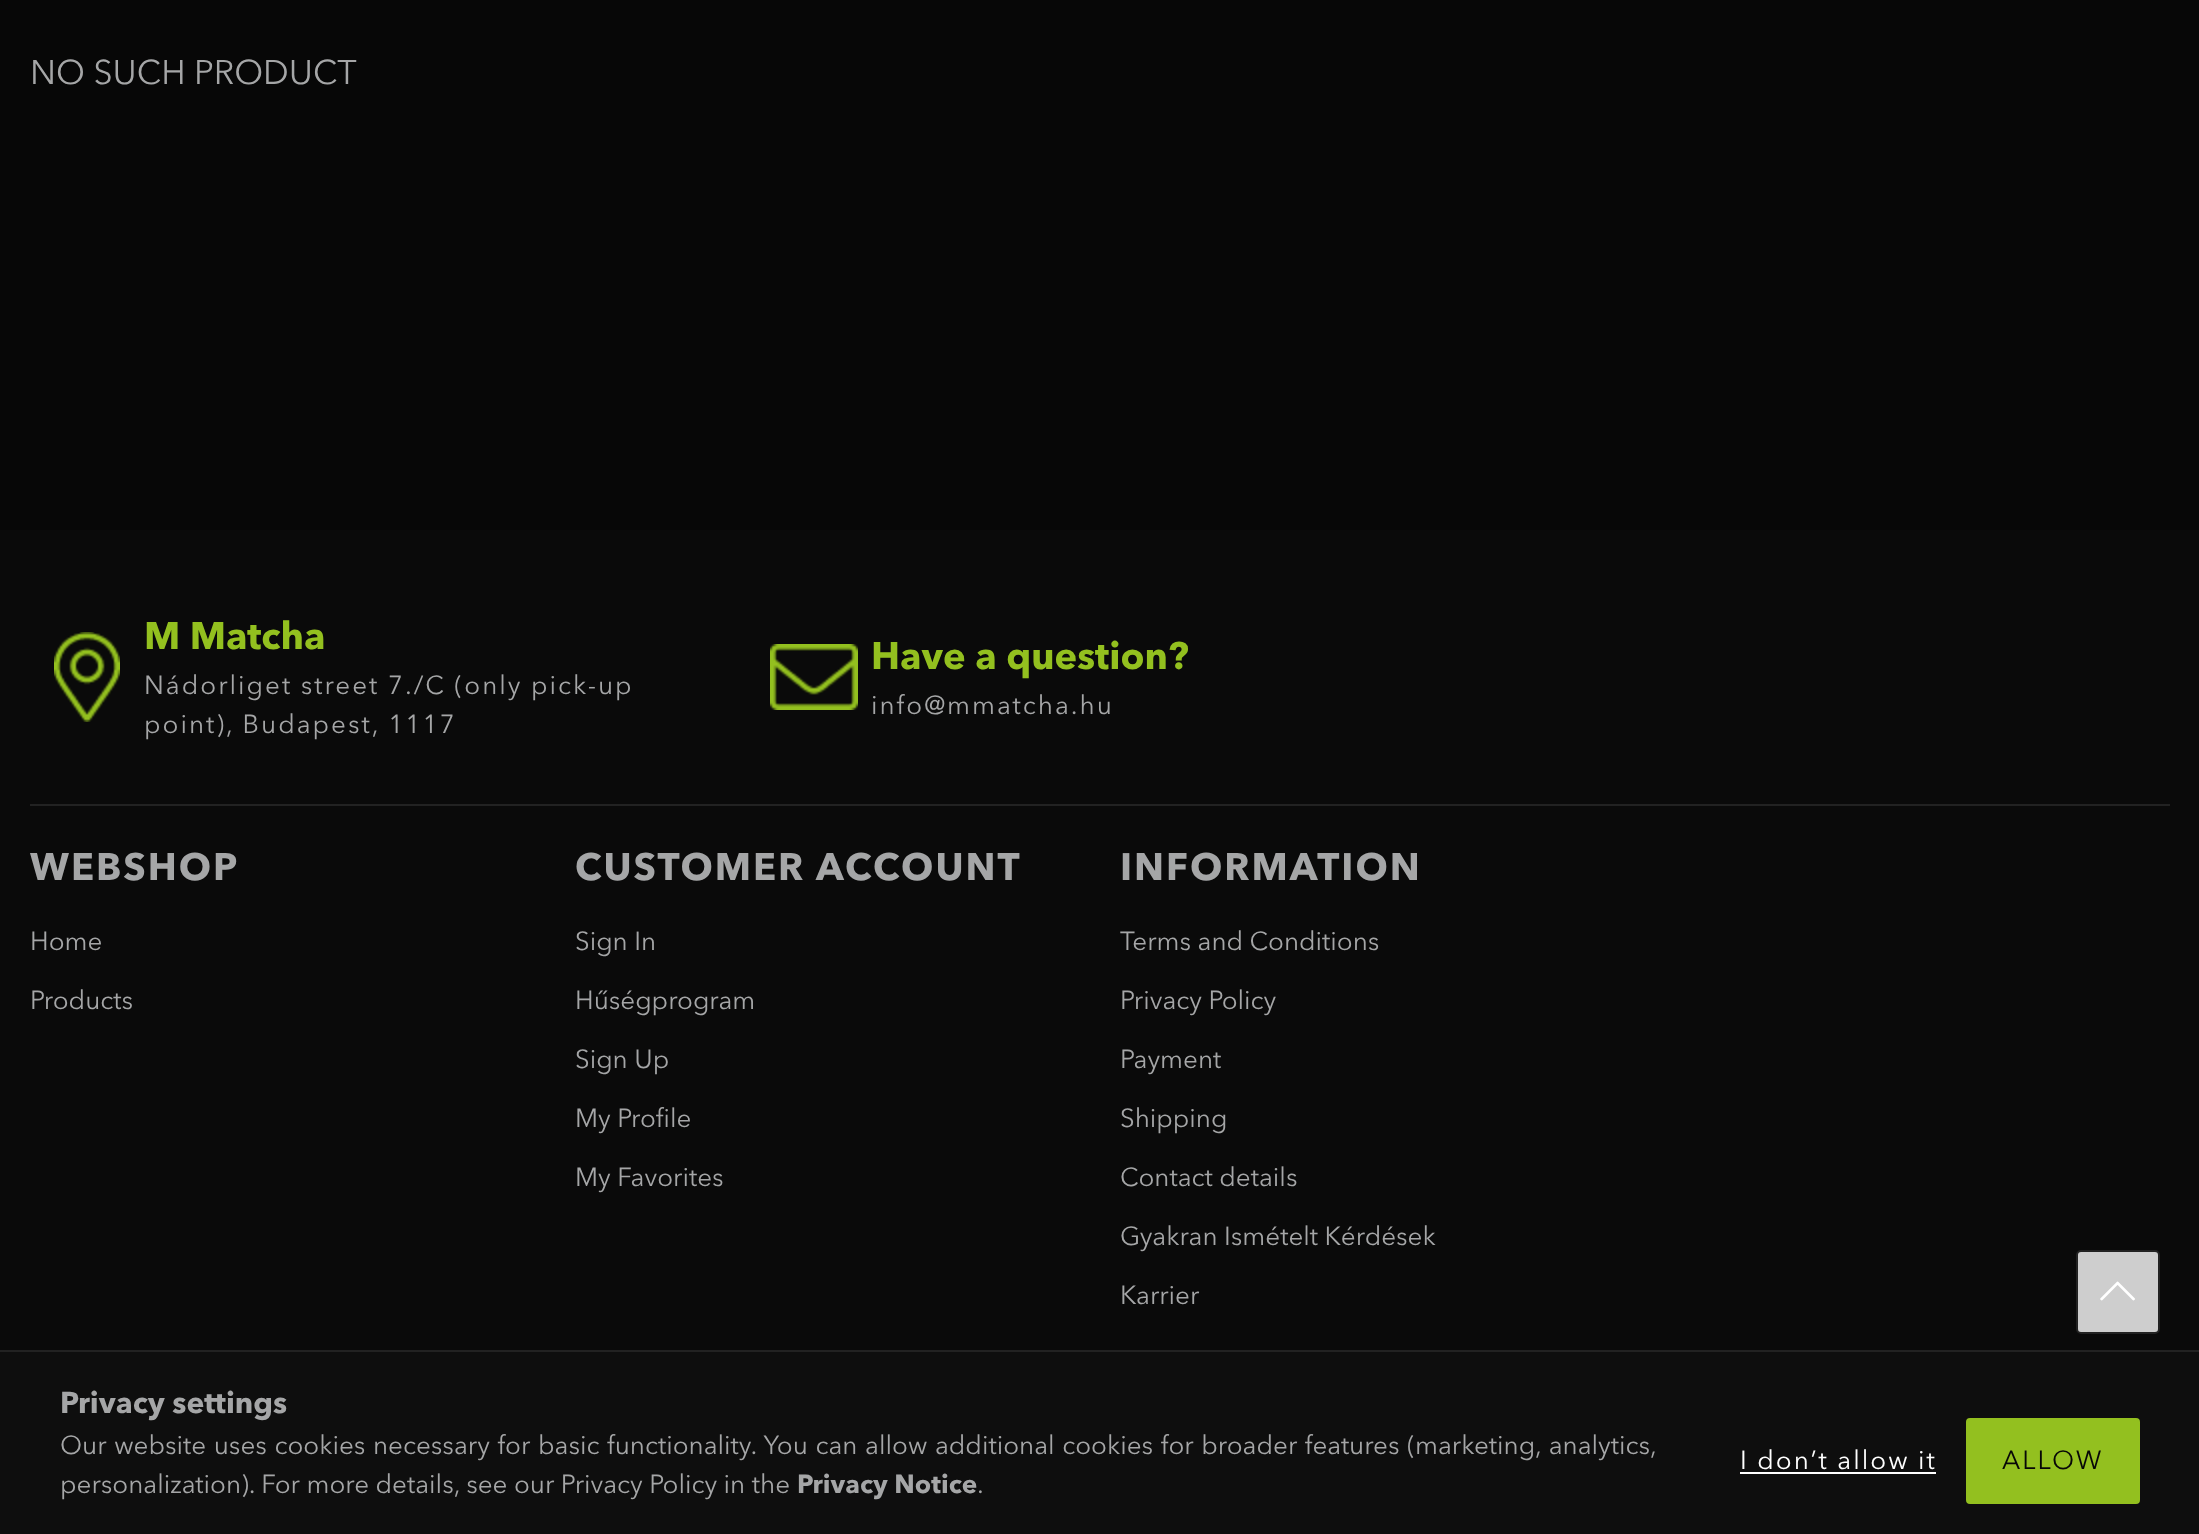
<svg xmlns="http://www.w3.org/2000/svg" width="2199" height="1534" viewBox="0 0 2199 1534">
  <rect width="100%" height="100%" fill="#070707"/>
  <text x="30" y="84" font-family="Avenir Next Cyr" font-size="34" fill="#a5a6a7">NO SUCH PRODUCT</text>
  <rect x="0" y="530" width="2199" height="820" fill="#0a0a0a"/>
  <image x="54" y="632" width="66" height="90" href="img1.png"/>
  <text x="144" y="649" font-family="Avenir Next Cyr" font-size="38" font-weight="bold" fill="#93c01f">M Matcha</text>
  <text x="144" y="694" font-family="Avenir Next Cyr" font-size="26" letter-spacing="2" fill="#a5a6a7">Nádorliget street 7./C (only pick-up</text>
  <text x="144" y="733" font-family="Avenir Next Cyr" font-size="26" letter-spacing="2" fill="#a5a6a7">point), Budapest, 1117</text>
  <image x="770" y="644" width="88" height="66" href="img2.png"/>
  <text x="871" y="669" font-family="Avenir Next Cyr" font-size="38" font-weight="bold" fill="#93c01f">Have a question?</text>
  <text x="871" y="714" font-family="Avenir Next Cyr" font-size="26" letter-spacing="2" fill="#a5a6a7">info@mmatcha.hu</text>
  <rect x="30" y="804" width="2140" height="2" fill="#222222"/>
  <text x="30" y="880" font-family="Avenir Next Cyr" font-size="38" font-weight="bold" letter-spacing="2" fill="#a5a6a7">WEBSHOP</text>
  <text x="30" y="950" font-family="Avenir Next Cyr" font-size="26" fill="#a5a6a7">Home</text>
  <text x="30" y="1009" font-family="Avenir Next Cyr" font-size="26" fill="#a5a6a7">Products</text>
  <text x="575" y="880" font-family="Avenir Next Cyr" font-size="38" font-weight="bold" letter-spacing="2" fill="#a5a6a7">CUSTOMER ACCOUNT</text>
  <text x="575" y="950" font-family="Avenir Next Cyr" font-size="26" fill="#a5a6a7">Sign In</text>
  <text x="575" y="1009" font-family="Avenir Next Cyr" font-size="26" fill="#a5a6a7">Hűségprogram</text>
  <text x="575" y="1068" font-family="Avenir Next Cyr" font-size="26" fill="#a5a6a7">Sign Up</text>
  <text x="575" y="1127" font-family="Avenir Next Cyr" font-size="26" fill="#a5a6a7">My Profile</text>
  <text x="575" y="1186" font-family="Avenir Next Cyr" font-size="26" fill="#a5a6a7">My Favorites</text>
  <text x="1120" y="880" font-family="Avenir Next Cyr" font-size="38" font-weight="bold" letter-spacing="2" fill="#a5a6a7">INFORMATION</text>
  <text x="1120" y="950" font-family="Avenir Next Cyr" font-size="26" fill="#a5a6a7">Terms and Conditions</text>
  <text x="1120" y="1009" font-family="Avenir Next Cyr" font-size="26" fill="#a5a6a7">Privacy Policy</text>
  <text x="1120" y="1068" font-family="Avenir Next Cyr" font-size="26" fill="#a5a6a7">Payment</text>
  <text x="1120" y="1127" font-family="Avenir Next Cyr" font-size="26" fill="#a5a6a7">Shipping</text>
  <text x="1120" y="1186" font-family="Avenir Next Cyr" font-size="26" fill="#a5a6a7">Contact details</text>
  <text x="1120" y="1245" font-family="Avenir Next Cyr" font-size="26" fill="#a5a6a7">Gyakran Ismételt Kérdések</text>
  <text x="1120" y="1304" font-family="Avenir Next Cyr" font-size="26" fill="#a5a6a7">Karrier</text>
  <rect x="2077" y="1251" width="82" height="82" rx="4" fill="#cecece" stroke="#222222" stroke-width="2"/>
  <image x="2100" y="1281" width="35" height="20" href="img3.png"/>
  <rect x="0" y="1352" width="2199" height="182" fill="#0e0e0e"/>
  <rect x="0" y="1350" width="2199" height="2" fill="#222222"/>
  <text x="60" y="1413" font-family="Avenir Next Cyr" font-size="30" font-weight="bold" fill="#a5a6a7">Privacy settings</text>
  <text x="60" y="1454" word-spacing="1.1" font-family="Avenir Next Cyr" font-size="26" fill="#a5a6a7">Our website uses cookies necessary for basic functionality. You can allow additional cookies for broader features (marketing, analytics,</text>
  <text x="60" y="1493" font-family="Avenir Next Cyr" font-size="26" fill="#a5a6a7">personalization). For more details, see our Privacy Policy in the</text>
  <text x="797" y="1493" font-family="Avenir Next Cyr" font-size="26" font-weight="bold" fill="#a5a6a7">Privacy Notice</text>
  <text x="977" y="1493" font-family="Avenir Next Cyr" font-size="26" fill="#a5a6a7">.</text>
  <text x="1740" y="1469" font-family="Avenir Next Cyr" font-size="26" letter-spacing="2" fill="#ffffff">I don’t allow it</text>
  <rect x="1740" y="1472" width="196" height="2" fill="#ffffff"/>
  <rect x="1967" y="1419" width="172" height="84" rx="3" fill="#93c01f" stroke="#93c01f" stroke-width="2"/>
  <text x="2002" y="1469" font-family="Avenir Next Cyr" font-size="26" letter-spacing="2" fill="#070707">ALLOW</text>
</svg>
